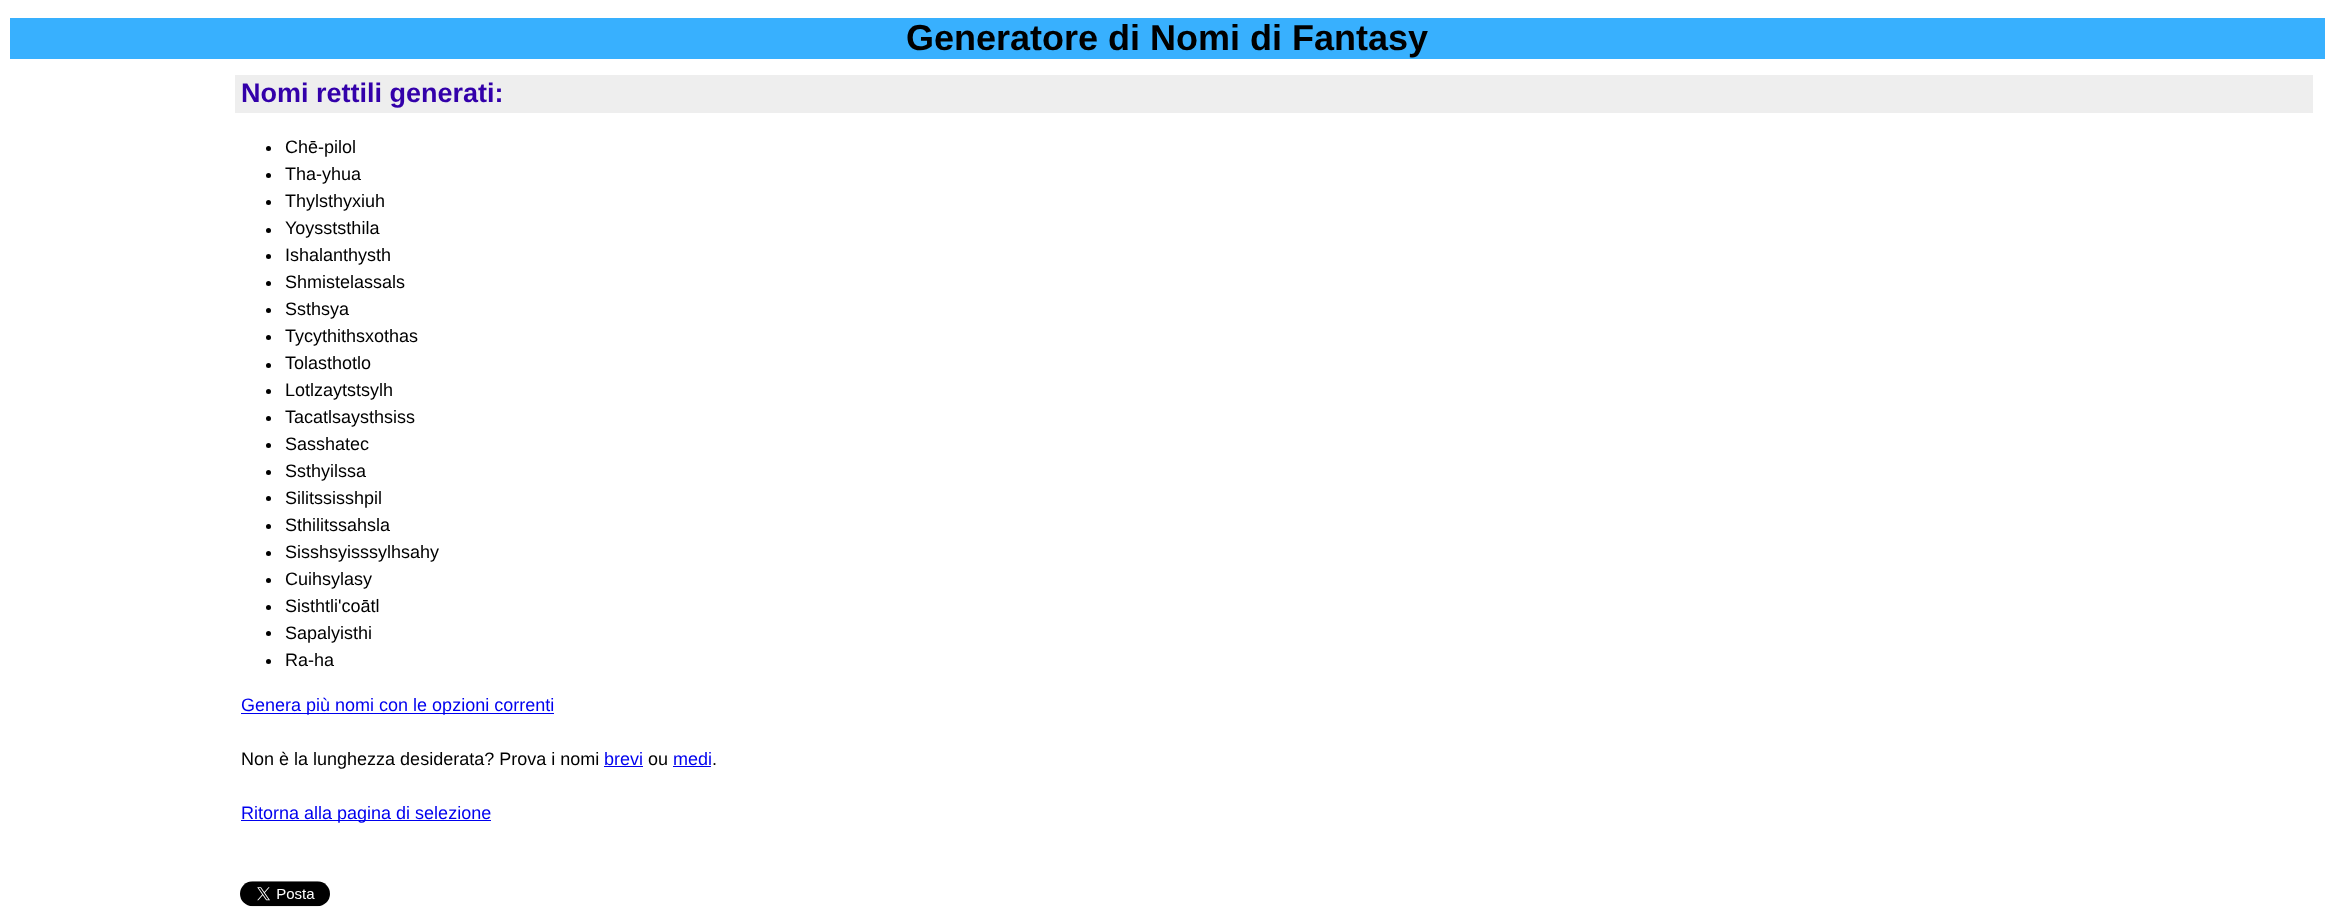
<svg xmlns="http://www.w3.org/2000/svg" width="2334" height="924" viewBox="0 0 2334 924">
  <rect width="100%" height="100%" fill="#ffffff"/>
  <rect x="10" y="18" width="2315" height="41" fill="#38b0fe"/>
  <text x="906" y="50" font-family="Liberation Sans" font-size="36" font-weight="bold" fill="#000000">Generatore di Nomi di Fantasy</text>
  <rect x="235" y="75" width="2078" height="38" fill="#eeeeee"/>
  <text x="241" y="102" font-family="Liberation Sans" font-size="27" font-weight="bold" fill="#3300aa">Nomi rettili generati:</text>
  <circle cx="268.5" cy="148.5" r="2.5" fill="#000000"/>
  <text x="285" y="153" font-family="Liberation Sans" font-size="18" fill="#000000">Chē-pilol</text>
  <circle cx="268.5" cy="175.5" r="2.5" fill="#000000"/>
  <text x="285" y="180" font-family="Liberation Sans" font-size="18" fill="#000000">Tha-yhua</text>
  <circle cx="268.5" cy="202.5" r="2.5" fill="#000000"/>
  <text x="285" y="207" font-family="Liberation Sans" font-size="18" fill="#000000">Thylsthyxiuh</text>
  <circle cx="268.5" cy="230.5" r="2.5" fill="#000000"/>
  <text x="285" y="234" font-family="Liberation Sans" font-size="18" fill="#000000">Yoysststhila</text>
  <circle cx="268.5" cy="256.5" r="2.5" fill="#000000"/>
  <text x="285" y="261" font-family="Liberation Sans" font-size="18" fill="#000000">Ishalanthysth</text>
  <circle cx="268.5" cy="283.5" r="2.5" fill="#000000"/>
  <text x="285" y="288" font-family="Liberation Sans" font-size="18" fill="#000000">Shmistelassals</text>
  <circle cx="268.5" cy="310.5" r="2.5" fill="#000000"/>
  <text x="285" y="315" font-family="Liberation Sans" font-size="18" fill="#000000">Ssthsya</text>
  <circle cx="268.5" cy="337.5" r="2.5" fill="#000000"/>
  <text x="285" y="342" font-family="Liberation Sans" font-size="18" fill="#000000">Tycythithsxothas</text>
  <circle cx="268.5" cy="365.5" r="2.5" fill="#000000"/>
  <text x="285" y="369" font-family="Liberation Sans" font-size="18" fill="#000000">Tolasthotlo</text>
  <circle cx="268.5" cy="391.5" r="2.5" fill="#000000"/>
  <text x="285" y="396" font-family="Liberation Sans" font-size="18" fill="#000000">Lotlzaytstsylh</text>
  <circle cx="268.5" cy="418.5" r="2.5" fill="#000000"/>
  <text x="285" y="423" font-family="Liberation Sans" font-size="18" fill="#000000">Tacatlsaysthsiss</text>
  <circle cx="268.5" cy="445.5" r="2.5" fill="#000000"/>
  <text x="285" y="450" font-family="Liberation Sans" font-size="18" fill="#000000">Sasshatec</text>
  <circle cx="268.5" cy="472.5" r="2.5" fill="#000000"/>
  <text x="285" y="477" font-family="Liberation Sans" font-size="18" fill="#000000">Ssthyilssa</text>
  <circle cx="268.5" cy="498.5" r="2.5" fill="#000000"/>
  <text x="285" y="504" font-family="Liberation Sans" font-size="18" fill="#000000">Silitssisshpil</text>
  <circle cx="268.5" cy="526.5" r="2.5" fill="#000000"/>
  <text x="285" y="531" font-family="Liberation Sans" font-size="18" fill="#000000">Sthilitssahsla</text>
  <circle cx="268.5" cy="553.5" r="2.5" fill="#000000"/>
  <text x="285" y="558" font-family="Liberation Sans" font-size="18" fill="#000000">Sisshsyisssylhsahy</text>
  <circle cx="268.5" cy="580.5" r="2.5" fill="#000000"/>
  <text x="285" y="585" font-family="Liberation Sans" font-size="18" fill="#000000">Cuihsylasy</text>
  <circle cx="268.5" cy="607.5" r="2.5" fill="#000000"/>
  <text x="285" y="612" font-family="Liberation Sans" font-size="18" fill="#000000">Sisthtli'coātl</text>
  <circle cx="268.5" cy="633.5" r="2.5" fill="#000000"/>
  <text x="285" y="639" font-family="Liberation Sans" font-size="18" fill="#000000">Sapalyisthi</text>
  <circle cx="268.5" cy="661.5" r="2.5" fill="#000000"/>
  <text x="285" y="666" font-family="Liberation Sans" font-size="18" fill="#000000">Ra-ha</text>
  <rect x="241" y="713" width="313" height="1" fill="#0000ee"/>
  <text x="241" y="711" font-family="Liberation Sans" font-size="18" fill="#0000ee">Genera più nomi con le opzioni correnti</text>
  <text x="241" y="765" font-family="Liberation Sans" font-size="18" fill="#000000">Non è la lunghezza desiderata? Prova i nomi</text>
  <text x="604" y="765" font-family="Liberation Sans" font-size="18" fill="#0000ee">brevi</text>
  <rect x="604" y="766" width="39" height="1" fill="#0000ee"/>
  <text x="648" y="765" font-family="Liberation Sans" font-size="18" fill="#000000">ou</text>
  <text x="673" y="765" font-family="Liberation Sans" font-size="18" fill="#0000ee">medi</text>
  <rect x="673" y="766" width="38" height="1" fill="#0000ee"/>
  <text x="712" y="765" font-family="Liberation Sans" font-size="18" fill="#000000">.</text>
  <rect x="241" y="820" width="250" height="1" fill="#0000ee"/>
  <text x="241" y="819" font-family="Liberation Sans" font-size="18" fill="#0000ee">Ritorna alla pagina di selezione</text>
  <image x="240" y="881" width="90" height="26" href="img1.png"/>
</svg>
